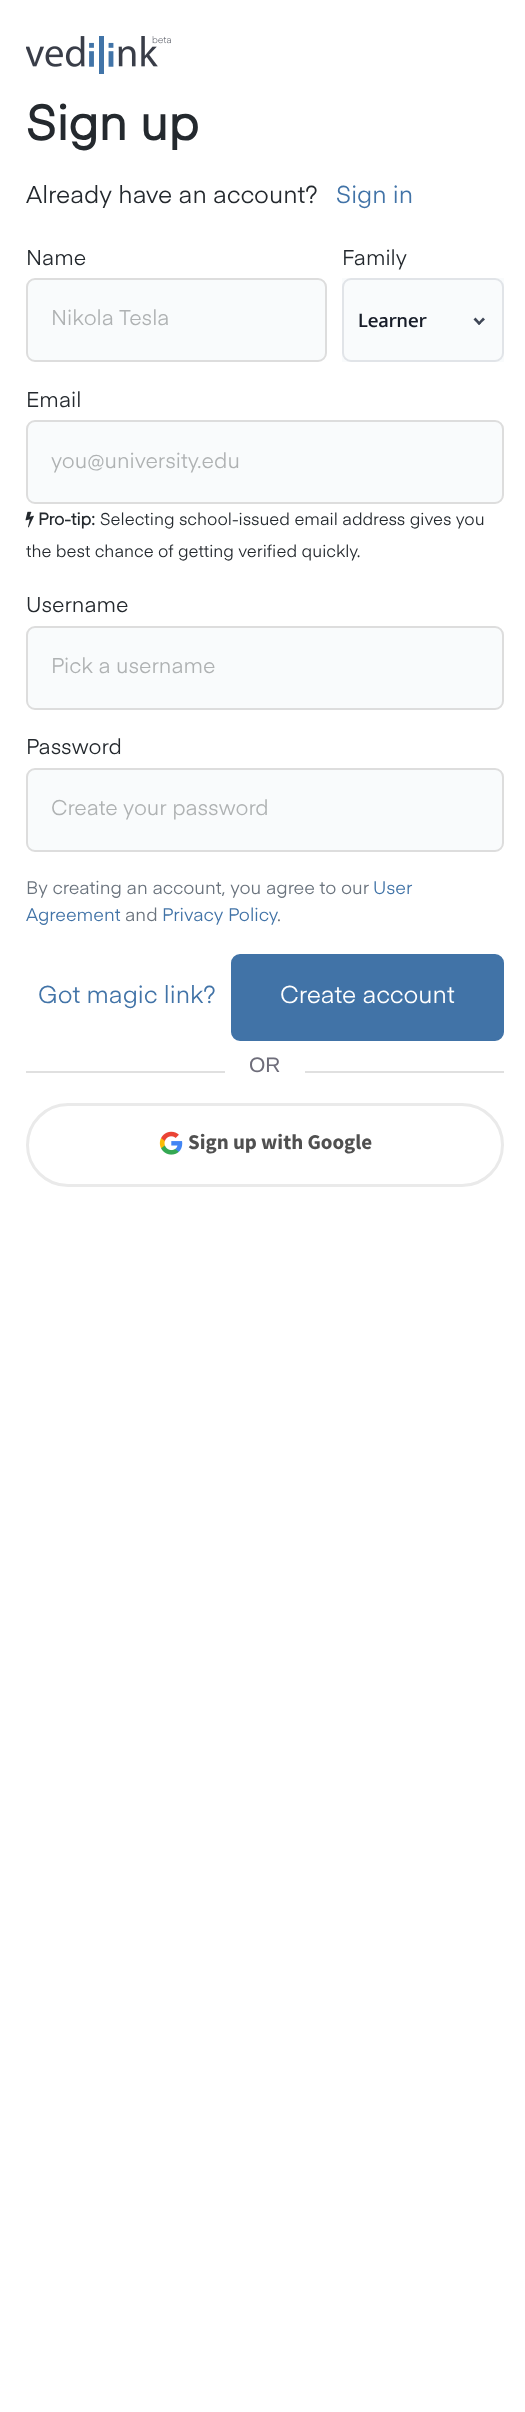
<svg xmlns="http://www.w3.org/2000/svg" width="525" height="2412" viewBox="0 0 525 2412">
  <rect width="100%" height="100%" fill="#ffffff"/>
  <image x="26" y="36" width="145" height="38" href="img1.png"/>
  <text x="26" y="140" font-family="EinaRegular" font-size="48" font-weight="bold" fill="#24292e">Sign up</text>
  <text x="26" y="203" font-family="EinaRegular" font-size="24" fill="#24292e">Already have an account?</text>
  <text x="336" y="203" font-family="EinaRegular" font-size="24" fill="#4173a7">Sign in</text>
  <text x="26" y="265" font-family="EinaRegular" font-size="21" fill="#24292e">Name</text>
  <rect x="27" y="279" width="299" height="82" rx="8" fill="#f9fbfc" stroke="#dddddd" stroke-width="2"/>
  <text x="51" y="325" font-family="EinaRegular" font-size="21" fill="#afb2b3">Nikola Tesla</text>
  <text x="342" y="265" font-family="EinaRegular" font-size="21" fill="#24292e">Family</text>
  <rect x="342" y="278" width="162" height="84" fill="#4173a7" fill-opacity="0.03"/>
  <rect x="343" y="279" width="160" height="82" rx="8" fill="none" stroke="#e1e4e8" stroke-width="2"/>
  <text x="358" y="327" font-family="Mukta Malar" font-size="21" font-weight="500" fill="#171c28">Learner</text>
  <path d="M483 317.5L485 319.5L479 325L477.5 323.5Z" fill="#3f4656"/>
  <path d="M475.5 317.5L481 323.5L479 325L473.5 319.5Z" fill="#3f4656"/>
  <text x="26" y="407" font-family="EinaRegular" font-size="21" fill="#24292e">Email</text>
  <rect x="27" y="421" width="476" height="82" rx="8" fill="#f9fbfc" stroke="#dddddd" stroke-width="2"/>
  <text x="51" y="468" font-family="EinaRegular" font-size="21" fill="#afb2b3">you@university.edu</text>
  <image x="25" y="511" width="9" height="17" href="img2.png"/>
  <text x="38" y="525" font-family="EinaRegular" font-size="16.8" font-weight="bold" fill="#24292e">Pro-tip:</text>
  <text x="100" y="525" font-family="EinaRegular" font-size="16.8" fill="#24292e">Selecting school-issued email address gives you</text>
  <text x="26" y="557" font-family="EinaRegular" font-size="16.8" fill="#24292e">the best chance of getting verified quickly.</text>
  <text x="26" y="612" font-family="EinaRegular" font-size="21" fill="#24292e">Username</text>
  <rect x="27" y="627" width="476" height="82" rx="8" fill="#f9fbfc" stroke="#dddddd" stroke-width="2"/>
  <text x="51" y="673" font-family="EinaRegular" font-size="21" fill="#afb2b3">Pick a username</text>
  <text x="26" y="754" font-family="EinaRegular" font-size="21" fill="#24292e">Password</text>
  <rect x="27" y="769" width="476" height="82" rx="8" fill="#f9fbfc" stroke="#dddddd" stroke-width="2"/>
  <text x="51" y="815" font-family="EinaRegular" font-size="21" fill="#afb2b3">Create your password</text>
  <text x="26" y="894" font-family="EinaRegular" font-size="18" fill="#6a737d">By creating an account, you agree to our</text>
  <text x="373" y="894" font-family="EinaRegular" font-size="18" fill="#4173a7">User</text>
  <text x="26" y="921" font-family="EinaRegular" font-size="18" fill="#4173a7">Agreement</text>
  <text x="125" y="921" font-family="EinaRegular" font-size="18" fill="#6a737d">and</text>
  <text x="277" y="921" font-family="EinaRegular" font-size="18" fill="#6a737d">.</text>
  <text x="162" y="921" font-family="EinaRegular" font-size="18" fill="#4173a7">Privacy Policy</text>
  <text x="38" y="1003" font-family="EinaRegular" font-size="24" fill="#4173a7">Got magic link?</text>
  <rect x="232" y="955" width="271" height="85" rx="8" fill="#4173a7" stroke="#4173a7" stroke-width="2"/>
  <text x="280" y="1003" font-family="EinaRegular" font-size="24" fill="#ffffff">Create account</text>
  <rect x="26" y="1071" width="478" height="2" fill="#e0e0e0"/>
  <rect x="225" y="1071" width="80" height="2" fill="#ffffff"/>
  <text x="249" y="1072" font-family="Liberation Sans" font-size="21" fill="#6e6d7a">OR</text>
  <rect x="27.5" y="1104.5" width="475" height="81" rx="40.5" fill="none" stroke="#eaeaea" stroke-width="3"/>
  <image x="159" y="1131" width="24" height="24" href="img3.png"/>
  <text x="188" y="1149" font-family="Source Sans Pro" font-size="21" font-weight="bold" fill="#505050">Sign up with Google</text>
</svg>
